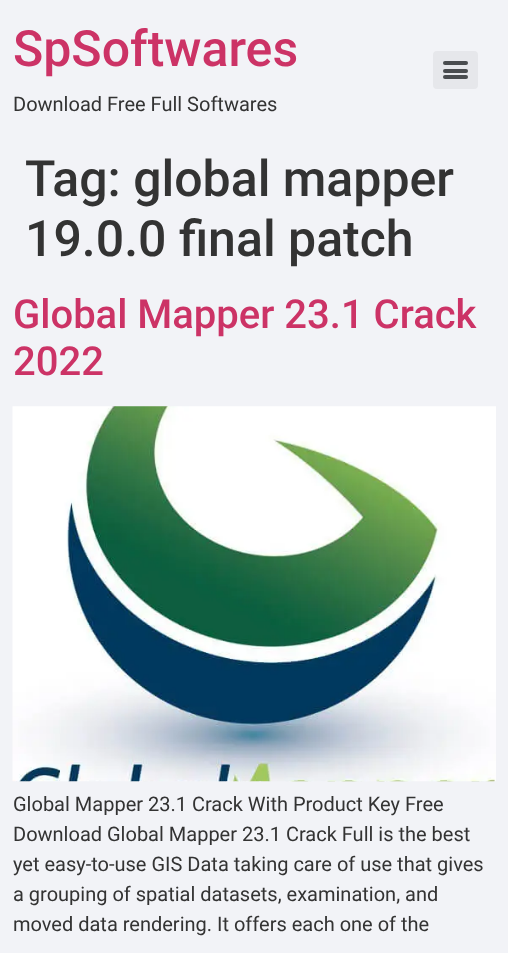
<svg xmlns="http://www.w3.org/2000/svg" width="508" height="953" viewBox="0 0 508 953">
  <rect width="100%" height="100%" fill="#f2f3f7"/>
  <text x="13" y="66" font-family="Roboto" font-size="50" font-weight="500" fill="#cc3366">SpSoftwares</text>
  <text x="13" y="111" font-family="Roboto" font-size="20" fill="#333333">Download Free Full Softwares</text>
  <rect x="433" y="51" width="45" height="38" rx="4" fill="#e6e7eb"/>
  <rect x="443" y="69" width="25" height="4" rx="2" fill="#494c4f"/>
  <rect x="443" y="61" width="25" height="4" rx="2" fill="#494c4f"/>
  <rect x="443" y="75" width="25" height="4" rx="2" fill="#494c4f"/>
  <text x="25" y="196" font-family="Roboto" font-size="50" font-weight="500" fill="#333333">Tag: global mapper</text>
  <text x="25" y="256" font-family="Roboto" font-size="50" font-weight="500" fill="#333333">19.0.0 final patch</text>
  <text x="13" y="328" font-family="Roboto" font-size="40" font-weight="500" fill="#cc3366">Global Mapper 23.1 Crack</text>
  <text x="13" y="375" font-family="Roboto" font-size="40" font-weight="500" fill="#cc3366">2022</text>
  <image x="12" y="406" width="484" height="376" href="img1.png"/>
  <text x="13" y="811" font-family="Roboto" font-size="20" fill="#333333">Global Mapper 23.1 Crack With Product Key Free</text>
  <text x="13" y="841" font-family="Roboto" font-size="20" fill="#333333">Download Global Mapper 23.1 Crack Full is the best</text>
  <text x="13" y="871" font-family="Roboto" font-size="20" fill="#333333">yet easy-to-use GIS Data taking care of use that gives</text>
  <text x="13" y="901" font-family="Roboto" font-size="20" fill="#333333">a grouping of spatial datasets, examination, and</text>
  <text x="13" y="931" font-family="Roboto" font-size="20" fill="#333333">moved data rendering. It offers each one of the</text>
</svg>
